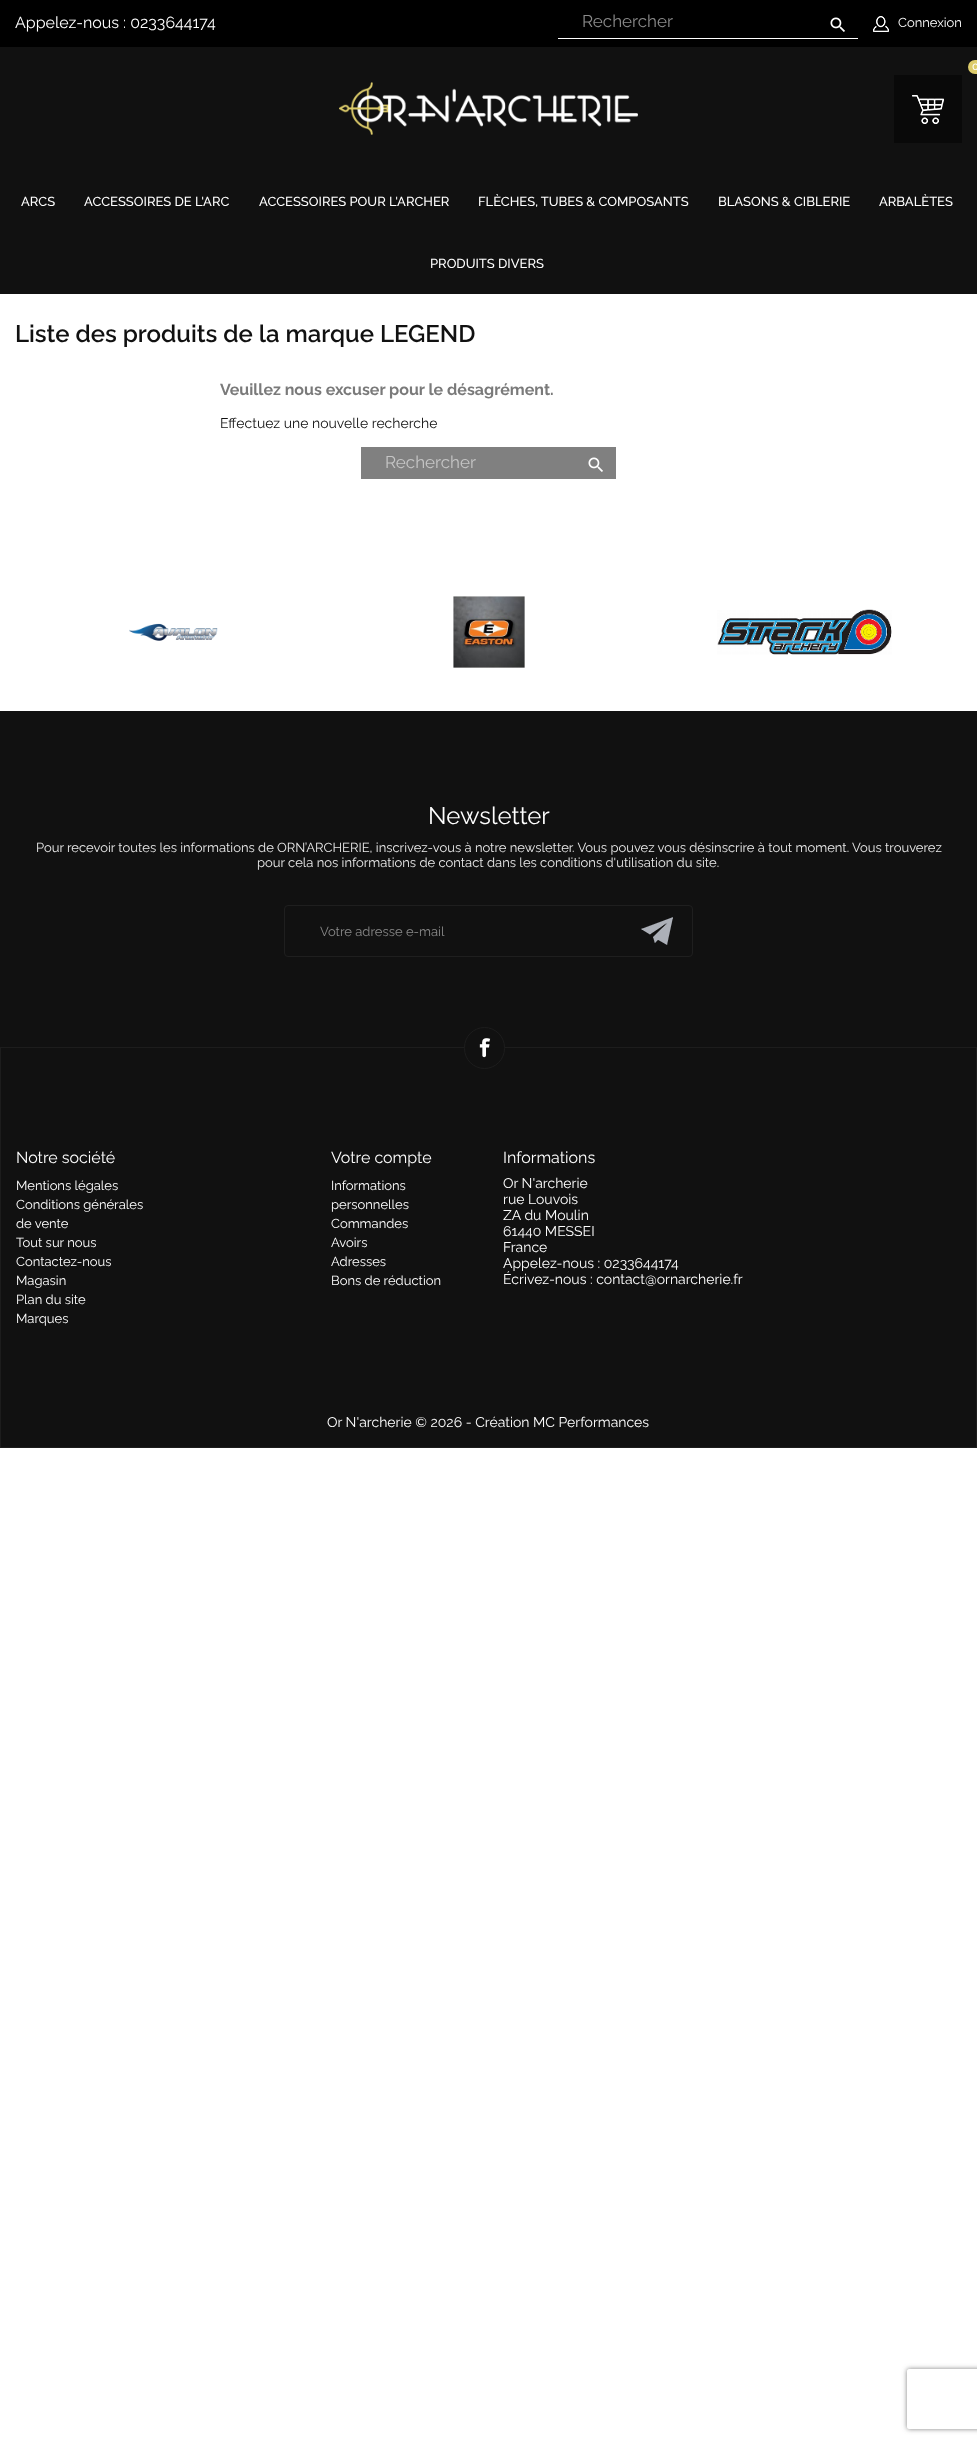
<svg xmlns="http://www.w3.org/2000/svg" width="977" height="2443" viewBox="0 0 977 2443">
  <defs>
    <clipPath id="clip1"><path d="M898 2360H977V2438H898ZM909 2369H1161C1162 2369 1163 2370 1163 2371V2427C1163 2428 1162 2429 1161 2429H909C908 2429 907 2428 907 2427V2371C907 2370 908 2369 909 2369Z" clip-rule="evenodd"/></clipPath>
    <filter id="blur1" x="-50%" y="-200%" width="200%" height="500%"><feGaussianBlur stdDeviation="2.5"/></filter>
  </defs>
  <rect width="100%" height="100%" fill="#ffffff"/>
  <rect x="0" y="47" width="977" height="247" fill="#111111"/>
  <rect x="0" y="0" width="977" height="47" fill="#000000"/>
  <text x="15" y="28" font-family="Raleway" font-size="16" fill="#ffffff">Appelez-nous : 0233644174</text>
  <rect x="558" y="38" width="300" height="1" fill="#ffffff"/>
  <text x="582" y="27" font-family="Raleway" font-size="17" fill="#8a8a8a">Rechercher</text>
  <image x="830" y="17" width="15" height="15" href="img1.png"/>
  <image x="873" y="16" width="16" height="16" href="img2.png"/>
  <text x="898" y="27" font-family="Raleway" font-size="13" fill="#ffffff">Connexion</text>
  <rect x="894" y="75" width="68" height="68" fill="#090909"/>
  <rect x="970" y="62" width="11" height="10" rx="5" fill="#ddcc6b" stroke="#ddcc6b" stroke-width="4"/>
  <text x="972" y="70" font-family="Raleway" font-size="11" font-weight="500" fill="#ffffff">0</text>
  <image x="912" y="95" width="32" height="29" href="img3.png"/>
  <image x="339" y="82" width="299" height="53" href="img4.png"/>
  <text x="21" y="206" font-family="Raleway" font-size="13" font-weight="500" fill="#ffffff">ARCS</text>
  <text x="84" y="206" font-family="Raleway" font-size="13" font-weight="500" fill="#ffffff">ACCESSOIRES DE L'ARC</text>
  <text x="259" y="206" font-family="Raleway" font-size="13" font-weight="500" fill="#ffffff">ACCESSOIRES POUR L'ARCHER</text>
  <text x="478" y="206" font-family="Raleway" font-size="13" font-weight="500" fill="#ffffff">FLÈCHES, TUBES &amp; COMPOSANTS</text>
  <text x="718" y="206" font-family="Raleway" font-size="13" font-weight="500" fill="#ffffff">BLASONS &amp; CIBLERIE</text>
  <text x="879" y="206" font-family="Raleway" font-size="13" font-weight="500" fill="#ffffff">ARBALÈTES</text>
  <text x="430" y="268" font-family="Raleway" font-size="13" font-weight="500" fill="#ffffff">PRODUITS DIVERS</text>
  <text x="15" y="342" font-family="Raleway" font-size="24" font-weight="600" fill="#111111">Liste des produits de la marque LEGEND</text>
  <text x="220" y="395" font-family="Raleway" font-size="16" font-weight="bold" fill="#7a7a7a">Veuillez nous excuser pour le désagrément.</text>
  <text x="220" y="428" font-family="Raleway" font-size="14" fill="#111111">Effectuez une nouvelle recherche</text>
  <rect x="361" y="447" width="255" height="32" fill="#808080"/>
  <text x="385" y="468" font-family="Raleway" font-size="17" fill="#c5c5c5">Rechercher</text>
  <image x="588" y="457" width="15" height="15" href="img5.png"/>
  <image x="129" y="623" width="89" height="18" href="img6.png"/>
  <image x="453" y="596" width="72" height="72" href="img7.png"/>
  <image x="717" y="609" width="175" height="46" href="img8.png"/>
  <rect x="0" y="711" width="977" height="336" fill="#111111"/>
  <text x="428" y="824" font-family="Raleway" font-size="24" fill="#ffffff">Newsletter</text>
  <text x="36" y="852" font-family="Raleway" font-size="13" fill="#eaeaea">Pour recevoir toutes les informations de ORN’ARCHERIE, inscrivez-vous à notre newsletter. Vous pouvez vous désinscrire à tout moment. Vous trouverez</text>
  <text x="257" y="867" font-family="Raleway" font-size="13" fill="#eaeaea">pour cela nos informations de contact dans les conditions d'utilisation du site.</text>
  <rect x="284.5" y="905.5" width="408" height="51" rx="3.5" fill="none" stroke="#1f1f1f"/>
  <text x="320" y="936" font-family="Raleway" font-size="13" fill="#8a8a8a">Votre adresse e-mail</text>
  <image x="641" y="917" width="32" height="28" href="img9.png"/>
  <rect x="0.5" y="1047.5" width="976" height="400" fill="#111111" stroke="#1d1d1d"/>
  <rect x="464.5" y="1027.5" width="40" height="41" rx="20" fill="#111111" stroke="#1d1d1d"/>
  <image x="479" y="1038" width="12" height="20" href="img10.png"/>
  <text x="16" y="1163" font-family="Raleway" font-size="16" fill="#ffffff">Notre société</text>
  <text x="16" y="1190" font-family="Raleway" font-size="13" fill="#ffffff">Mentions légales</text>
  <text x="16" y="1209" font-family="Raleway" font-size="13" fill="#ffffff">Conditions générales</text>
  <text x="16" y="1228" font-family="Raleway" font-size="13" fill="#ffffff">de vente</text>
  <text x="16" y="1247" font-family="Raleway" font-size="13" fill="#ffffff">Tout sur nous</text>
  <text x="16" y="1266" font-family="Raleway" font-size="13" fill="#ffffff">Contactez-nous</text>
  <text x="16" y="1285" font-family="Raleway" font-size="13" fill="#ffffff">Magasin</text>
  <text x="16" y="1304" font-family="Raleway" font-size="13" fill="#ffffff">Plan du site</text>
  <text x="16" y="1323" font-family="Raleway" font-size="13" fill="#ffffff">Marques</text>
  <text x="331" y="1163" font-family="Raleway" font-size="16" fill="#ffffff">Votre compte</text>
  <text x="331" y="1190" font-family="Raleway" font-size="13" fill="#ffffff">Informations</text>
  <text x="331" y="1209" font-family="Raleway" font-size="13" fill="#ffffff">personnelles</text>
  <text x="331" y="1228" font-family="Raleway" font-size="13" fill="#ffffff">Commandes</text>
  <text x="331" y="1247" font-family="Raleway" font-size="13" fill="#ffffff">Avoirs</text>
  <text x="331" y="1266" font-family="Raleway" font-size="13" fill="#ffffff">Adresses</text>
  <text x="331" y="1285" font-family="Raleway" font-size="13" fill="#ffffff">Bons de réduction</text>
  <text x="503" y="1163" font-family="Raleway" font-size="16" fill="#ffffff">Informations</text>
  <text x="503" y="1188" font-family="Raleway" font-size="14" fill="#ffffff">Or N'archerie</text>
  <text x="503" y="1204" font-family="Raleway" font-size="14" fill="#ffffff">rue Louvois</text>
  <text x="503" y="1220" font-family="Raleway" font-size="14" fill="#ffffff">ZA du Moulin</text>
  <text x="503" y="1236" font-family="Raleway" font-size="14" fill="#ffffff">61440 MESSEI</text>
  <text x="503" y="1252" font-family="Raleway" font-size="14" fill="#ffffff">France</text>
  <text x="503" y="1268" font-family="Raleway" font-size="14" fill="#ffffff">Appelez-nous : 0233644174</text>
  <text x="503" y="1284" font-family="Raleway" font-size="14" fill="#ffffff">Écrivez-nous : contact@ornarcherie.fr</text>
  <text x="327" y="1427" font-family="Raleway" font-size="14" fill="#ffffff">Or N'archerie © 2026 - Création MC Performances</text>
  <g clip-path="url(#clip1)">
    <rect x="907" y="2369" width="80" height="60" rx="2" fill="#808080" filter="url(#blur1)"/>
  </g>
</svg>
